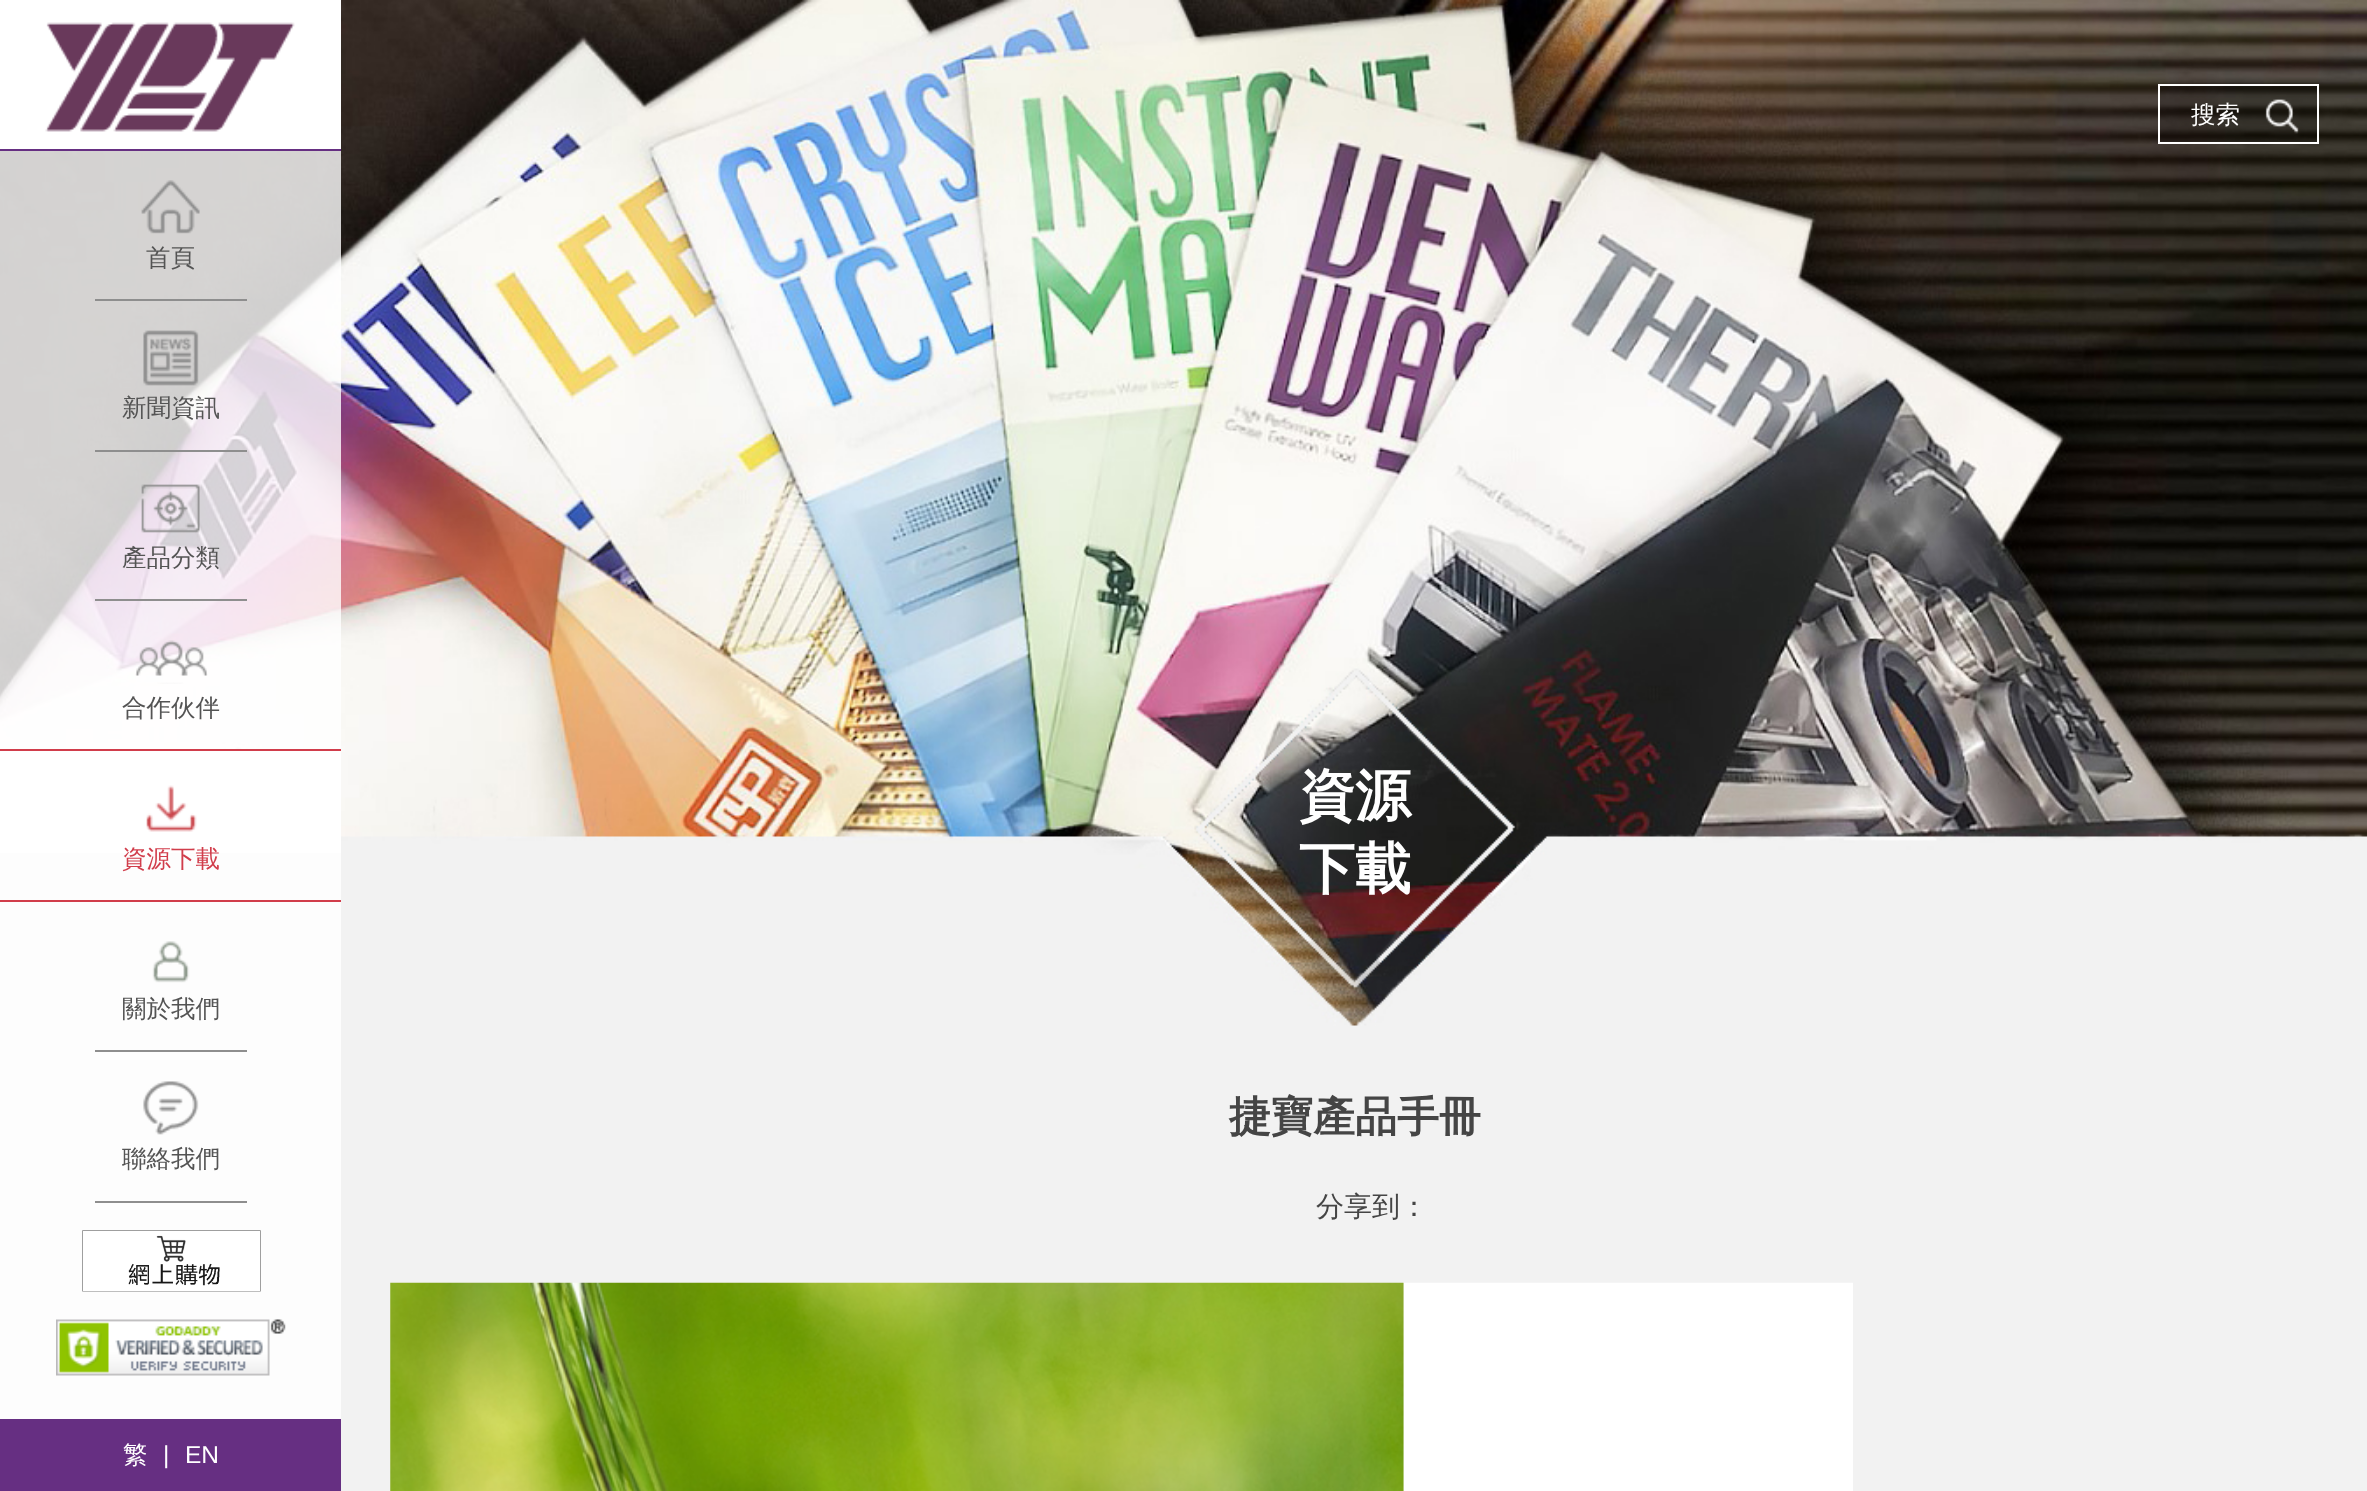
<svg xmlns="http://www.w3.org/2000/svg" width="2367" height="1491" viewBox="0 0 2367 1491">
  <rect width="100%" height="100%" fill="#f2f2f2"/>
  <image x="0" y="0" width="2367" height="1026" href="img12.png"/>
  <rect x="2159" y="85" width="159" height="58" fill="#000000" fill-opacity="0.2" stroke="#ffffff" stroke-width="2"/>
  <text x="2191" y="123" font-family="WenQuanYi Zen Hei" font-size="24.5" font-weight="500" fill="#ffffff">搜索</text>
  <image x="2265" y="99" width="34" height="35" href="img1.png"/>
  <rect x="0" y="151" width="341" height="1268" fill="#ffffff" fill-opacity="0.8"/>
  <rect x="0" y="0" width="341" height="149" fill="#ffffff"/>
  <rect x="0" y="149" width="341" height="2" fill="#662f82"/>
  <image x="45" y="22" width="250" height="110" href="img2.png"/>
  <image x="141" y="180" width="59" height="54" href="img3.png"/>
  <text x="146" y="266" font-family="WenQuanYi Zen Hei" font-size="24.5" font-weight="500" fill="#545454">首頁</text>
  <rect x="95" y="299" width="152" height="2" fill="#8e8e8e"/>
  <image x="143" y="330" width="56" height="56" href="img4.png"/>
  <text x="122" y="416" font-family="WenQuanYi Zen Hei" font-size="24.5" font-weight="500" fill="#545454">新聞資訊</text>
  <rect x="95" y="450" width="152" height="2" fill="#8e8e8e"/>
  <image x="141" y="484" width="59" height="49" href="img5.png"/>
  <text x="122" y="566" font-family="WenQuanYi Zen Hei" font-size="24.5" font-weight="500" fill="#545454">產品分類</text>
  <rect x="95" y="599" width="152" height="2" fill="#8e8e8e"/>
  <image x="135" y="640" width="73" height="44" href="img6.png"/>
  <text x="122" y="716" font-family="WenQuanYi Zen Hei" font-size="24.5" font-weight="500" fill="#545454">合作伙伴</text>
  <rect x="0" y="751" width="341" height="102" fill="#ffffff"/>
  <rect x="0" y="749" width="341" height="2" fill="#d13d4b"/>
  <image x="146" y="785" width="51" height="47" href="img7.png"/>
  <text x="122" y="867" font-family="WenQuanYi Zen Hei" font-size="24.5" font-weight="500" fill="#d13d4b">資源下載</text>
  <rect x="0" y="900" width="341" height="2" fill="#d13d4b"/>
  <image x="152" y="941" width="38" height="42" href="img8.png"/>
  <text x="122" y="1017" font-family="WenQuanYi Zen Hei" font-size="24.5" font-weight="500" fill="#545454">關於我們</text>
  <rect x="95" y="1050" width="152" height="2" fill="#8e8e8e"/>
  <image x="143" y="1081" width="56" height="54" href="img9.png"/>
  <text x="122" y="1167" font-family="WenQuanYi Zen Hei" font-size="24.5" font-weight="500" fill="#545454">聯絡我們</text>
  <rect x="95" y="1201" width="152" height="2" fill="#8e8e8e"/>
  <image x="82" y="1230" width="179" height="62" href="img10.png"/>
  <image x="56" y="1319" width="230" height="57" href="img11.png"/>
  <rect x="0" y="1419" width="341" height="72" fill="#662f82"/>
  <text x="123" y="1463" font-family="WenQuanYi Zen Hei" font-size="24.5" font-weight="500" fill="#ffffff">繁</text>
  <text x="163" y="1463" font-family="Liberation Sans" font-size="24.5" fill="#ffffff">|</text>
  <text x="185" y="1463" font-family="Liberation Sans" font-size="24.5" fill="#ffffff">EN</text>
  <text x="1299" y="815" font-family="WenQuanYi Zen Hei" font-size="56" font-weight="bold" fill="#ffffff">資源</text>
  <text x="1299" y="888" font-family="WenQuanYi Zen Hei" font-size="56" font-weight="bold" fill="#ffffff">下載</text>
  <text x="1229" y="1131" font-family="WenQuanYi Zen Hei" font-size="42" font-weight="bold" fill="#454545">捷寶產品手冊</text>
  <text x="1316" y="1216" font-family="WenQuanYi Zen Hei" font-size="28" font-weight="500" fill="#454545">分享到：</text>
  <image x="390" y="1282" width="1463" height="209" href="img13.png"/>
</svg>
